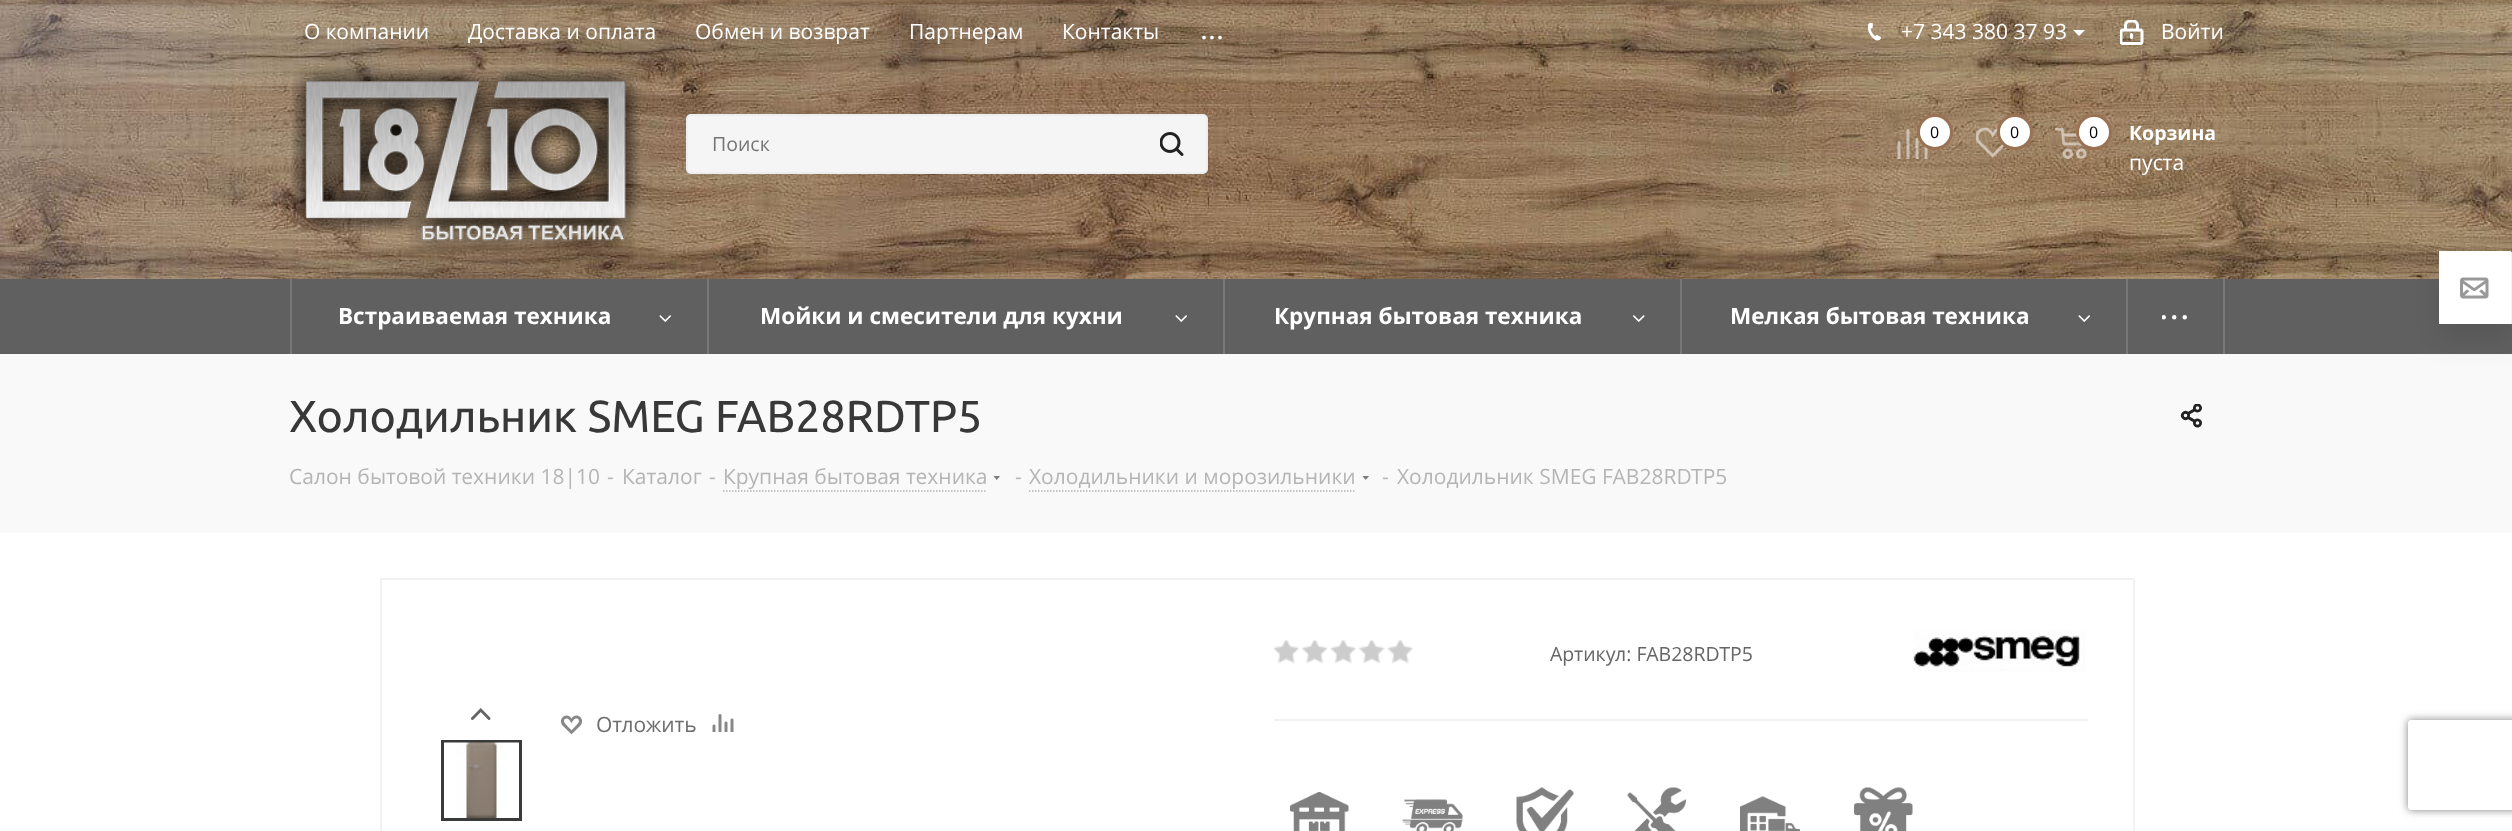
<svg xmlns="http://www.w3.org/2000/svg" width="2512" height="831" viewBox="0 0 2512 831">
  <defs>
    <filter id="blur1" x="-50%" y="-200%" width="200%" height="500%"><feGaussianBlur stdDeviation="4"/></filter>
    <filter id="blur2" x="-50%" y="-200%" width="200%" height="500%"><feGaussianBlur stdDeviation="15"/></filter>
    <clipPath id="clip1"><path d="M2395 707H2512V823H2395ZM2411 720H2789C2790.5 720 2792 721.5 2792 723V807C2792 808.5 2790.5 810 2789 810H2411C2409.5 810 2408 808.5 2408 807V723C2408 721.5 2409.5 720 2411 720Z" clip-rule="evenodd"/></clipPath>
  </defs>
  <rect width="100%" height="100%" fill="#ffffff"/>
  <image x="0" y="4" width="2512" height="275" href="img3.png"/>
  <rect x="0" y="-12" width="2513" height="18" fill="#000000" fill-opacity="0.14" filter="url(#blur1)"/>
  <image x="0" y="0" width="2512" height="6" href="img1.png"/>
  <image x="392" y="0" width="169" height="3" href="img2.png"/>
  <text x="304" y="39" font-family="Open Sans" font-size="21" fill="#ffffff">О компании</text>
  <text x="468" y="39" font-family="Open Sans" font-size="21" fill="#ffffff">Доставка и оплата</text>
  <text x="695" y="39" font-family="Open Sans" font-size="21" fill="#ffffff">Обмен и возврат</text>
  <text x="909" y="39" font-family="Open Sans" font-size="21" fill="#ffffff">Партнерам</text>
  <text x="1062" y="39" font-family="Open Sans" font-size="21" fill="#ffffff">Контакты</text>
  <text x="1201" y="39" font-family="Open Sans" font-size="21" font-weight="bold" letter-spacing="2" fill="#ffffff">...</text>
  <image x="1868" y="23" width="13" height="18" href="img4.png"/>
  <text x="1901" y="39" font-family="Open Sans" font-size="21" fill="#ffffff">+7 343 380 37 93</text>
  <path d="M2073 30H2085L2079 36Z" fill="#ffffff"/>
  <image x="2120" y="20" width="24" height="25" href="img5.png"/>
  <text x="2161" y="39" font-family="Open Sans" font-size="21" fill="#ffffff">Войти</text>
  <image x="291" y="66" width="349" height="188" href="img6.png"/>
  <rect x="687" y="115" width="520" height="58" rx="4" fill="#f5f5f5" stroke="#eeeeee" stroke-width="2"/>
  <text x="712" y="151" font-family="Open Sans" font-size="19.5" fill="#757575">Поиск</text>
  <image x="1160" y="132" width="24" height="24" href="img7.png"/>
  <image x="1897" y="129" width="31" height="30" href="img8.png"/>
  <circle cx="1935" cy="132" r="16.5" fill="none" stroke="#9a7153" stroke-width="3"/>
  <circle cx="1935" cy="132" r="15" fill="#ffffff"/>
  <text x="1930" y="138" font-family="Open Sans" font-size="16" fill="#000000">0</text>
  <image x="1976" y="128" width="31" height="30" href="img9.png"/>
  <circle cx="2015" cy="132" r="16.5" fill="none" stroke="#9a7153" stroke-width="3"/>
  <circle cx="2015" cy="132" r="15" fill="#ffffff"/>
  <text x="2010" y="138" font-family="Open Sans" font-size="16" fill="#000000">0</text>
  <image x="2055" y="128" width="32" height="31" href="img10.png"/>
  <circle cx="2094" cy="132" r="16.5" fill="none" stroke="#9a7153" stroke-width="3"/>
  <circle cx="2094" cy="132" r="15" fill="#ffffff"/>
  <text x="2089" y="138" font-family="Open Sans" font-size="16" fill="#000000">0</text>
  <text x="2129" y="140" font-family="Open Sans" font-size="19.5" font-weight="bold" fill="#ffffff">Корзина</text>
  <text x="2129" y="170" font-family="Open Sans" font-size="21" fill="#ffffff">пуста</text>
  <rect x="0" y="279" width="2512" height="75" fill="#616060"/>
  <rect x="290" y="279" width="2" height="75" fill="#797878"/>
  <rect x="707" y="279" width="2" height="75" fill="#797878"/>
  <text x="338" y="324" font-family="Open Sans" font-size="22.5" font-weight="bold" fill="#ffffff">Встраиваемая техника</text>
  <image x="659" y="315" width="12" height="7" href="img11.png"/>
  <rect x="1223" y="279" width="2" height="75" fill="#797878"/>
  <text x="760" y="324" font-family="Open Sans" font-size="22.5" font-weight="bold" fill="#ffffff">Мойки и смесители для кухни</text>
  <image x="1175" y="315" width="12" height="7" href="img11.png"/>
  <rect x="1680" y="279" width="2" height="75" fill="#797878"/>
  <text x="1274" y="324" font-family="Open Sans" font-size="22.5" font-weight="bold" fill="#ffffff">Крупная бытовая техника</text>
  <image x="1633" y="315" width="12" height="7" href="img12.png"/>
  <rect x="2126" y="279" width="2" height="75" fill="#797878"/>
  <text x="1730" y="324" font-family="Open Sans" font-size="22.5" font-weight="bold" fill="#ffffff">Мелкая бытовая техника</text>
  <image x="2078" y="315" width="12" height="7" href="img11.png"/>
  <rect x="2223" y="279" width="2" height="75" fill="#797878"/>
  <image x="2162" y="315" width="25" height="5" href="img13.png"/>
  <rect x="0" y="354" width="2512" height="179" fill="#f9f9f9"/>
  <rect x="2439" y="267" width="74" height="72" fill="#000000" fill-opacity="0.1" filter="url(#blur2)"/>
  <rect x="2511" y="252" width="1" height="72" fill="#eff1f5"/>
  <rect x="2439" y="251" width="72" height="73" fill="#ffffff"/>
  <image x="2460" y="277" width="29" height="22" href="img14.png"/>
  <text x="289" y="432" font-family="Ubuntu" font-size="44.75" fill="#383838">Холодильник SMEG FAB28RDTP5</text>
  <image x="2180" y="404" width="22" height="24" href="img15.png"/>
  <text x="289" y="484" font-family="Open Sans" font-size="21" fill="#b6b5b5">Салон бытовой техники 18|10</text>
  <text x="607" y="484" font-family="Open Sans" font-size="21" fill="#b6b5b5">-</text>
  <text x="622" y="484" font-family="Open Sans" font-size="21" fill="#b6b5b5">Каталог</text>
  <text x="709" y="484" font-family="Open Sans" font-size="21" fill="#b6b5b5">-</text>
  <text x="723" y="484" font-family="Open Sans" font-size="21" fill="#b6b5b5">Крупная бытовая техника</text>
  <path d="M723 491H987" fill="none" stroke="#b4b4b4" stroke-width="1.5" stroke-dasharray="1.5 1.5"/>
  <image x="993" y="476" width="7" height="4" href="img16.png"/>
  <text x="1015" y="484" font-family="Open Sans" font-size="21" fill="#b6b5b5">-</text>
  <text x="1029" y="484" font-family="Open Sans" font-size="21" fill="#b6b5b5">Холодильники и морозильники</text>
  <path d="M1029 491H1356" fill="none" stroke="#b4b4b4" stroke-width="1.5" stroke-dasharray="1.5 1.5"/>
  <image x="1362" y="476" width="7" height="4" href="img16.png"/>
  <text x="1382" y="484" font-family="Open Sans" font-size="21" fill="#b6b5b5">-</text>
  <text x="1397" y="484" font-family="Open Sans" font-size="21" fill="#b6b5b5">Холодильник SMEG FAB28RDTP5</text>
  <rect x="381" y="579" width="1753" height="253" fill="none" stroke="#f2f2f2" stroke-width="2"/>
  <rect x="1274" y="719" width="814" height="2" fill="#f2f2f2"/>
  <image x="1273" y="640" width="26" height="24" href="img17.png"/>
  <image x="1302" y="640" width="26" height="24" href="img18.png"/>
  <image x="1330" y="640" width="26" height="24" href="img19.png"/>
  <image x="1359" y="640" width="26" height="24" href="img20.png"/>
  <image x="1387" y="640" width="26" height="24" href="img19.png"/>
  <text x="1550" y="661" font-family="Open Sans" font-size="19.5" fill="#666666">Артикул: FAB28RDTP5</text>
  <image x="1913" y="630" width="172" height="42" href="img21.png"/>
  <image x="1290" y="792" width="59" height="39" href="img22.png"/>
  <image x="1402" y="799" width="61" height="32" href="img23.png"/>
  <image x="1516" y="787" width="58" height="44" href="img24.png"/>
  <image x="1627" y="787" width="59" height="44" href="img25.png"/>
  <image x="1740" y="796" width="60" height="35" href="img26.png"/>
  <image x="1854" y="787" width="59" height="44" href="img27.png"/>
  <image x="471" y="708" width="20" height="12" href="img28.png"/>
  <rect x="442.5" y="741.5" width="78" height="78" fill="none" stroke="#383b39" stroke-width="3"/>
  <image x="444" y="742" width="75" height="76" href="img29.png"/>
  <image x="560" y="715" width="22" height="20" href="img30.png"/>
  <text x="596" y="732" font-family="Open Sans" font-size="21" fill="#6d6d6d">Отложить</text>
  <image x="712" y="714" width="22" height="18" href="img31.png"/>
  <g clip-path="url(#clip1)">
    <rect x="2408" y="720" width="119" height="90" rx="3" fill="#808080" filter="url(#blur1)"/>
  </g>
</svg>
